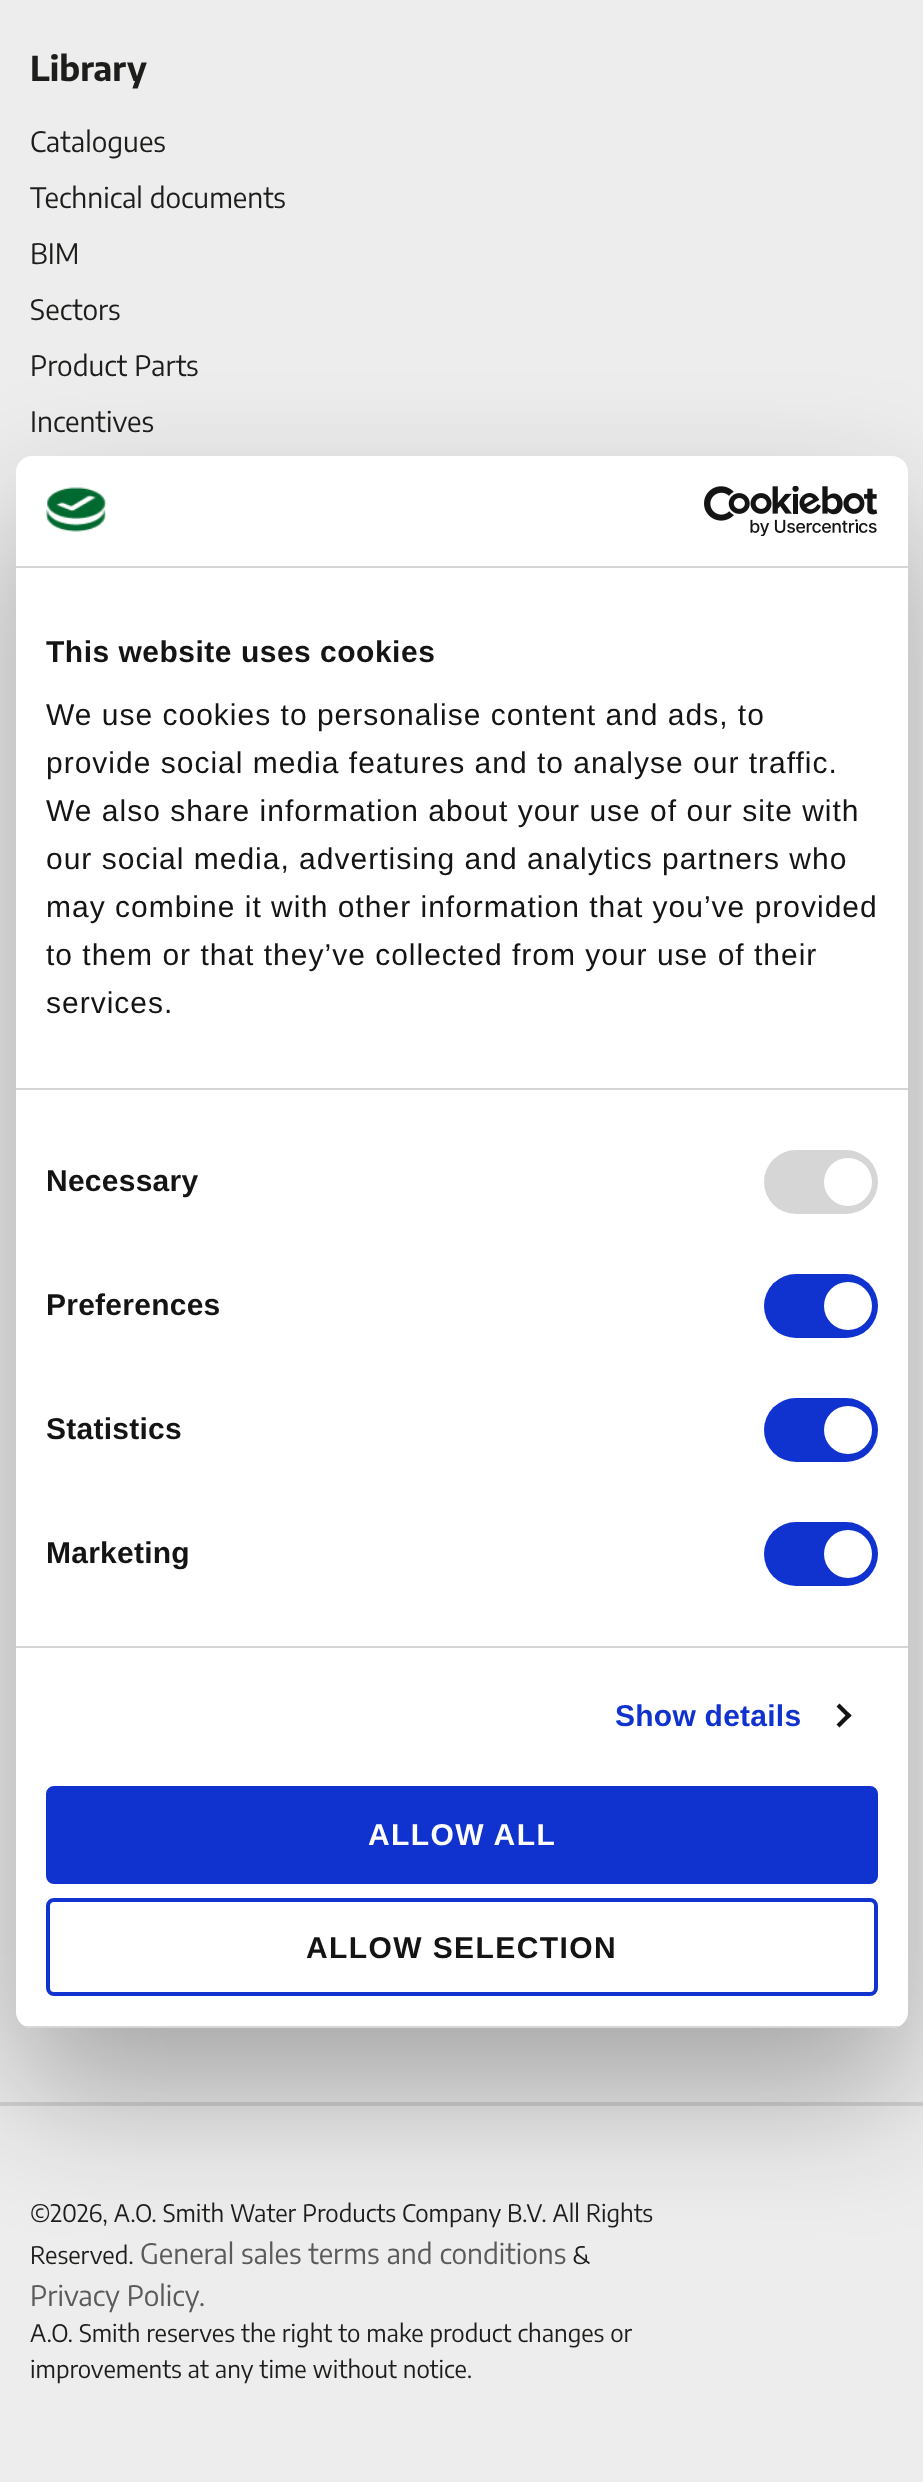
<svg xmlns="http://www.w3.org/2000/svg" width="923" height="2482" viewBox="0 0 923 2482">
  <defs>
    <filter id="blur1" x="-50%" y="-200%" width="200%" height="500%"><feGaussianBlur stdDeviation="68"/></filter>
    <clipPath id="clip1"><rect x="16" y="456" width="892" height="1572" rx="16"/></clipPath>
  </defs>
  <rect width="100%" height="100%" fill="#ededed"/>
  <rect x="0" y="2102" width="923" height="4" fill="#d2d2d1"/>
  <text x="30" y="81" font-family="Encode Sans Condensed" font-size="34" font-weight="bold" fill="#1d1d1b">Library</text>
  <text x="30" y="152" font-family="Encode Sans Condensed" font-size="28" fill="#1d1d1b">Catalogues</text>
  <text x="30" y="208" font-family="Encode Sans Condensed" font-size="28" fill="#1d1d1b">Technical documents</text>
  <text x="30" y="264" font-family="Encode Sans Condensed" font-size="28" fill="#1d1d1b">BIM</text>
  <text x="30" y="320" font-family="Encode Sans Condensed" font-size="28" fill="#1d1d1b">Sectors</text>
  <text x="30" y="376" font-family="Encode Sans Condensed" font-size="28" fill="#1d1d1b">Product Parts</text>
  <text x="30" y="432" font-family="Encode Sans Condensed" font-size="28" fill="#1d1d1b">Incentives</text>
  <text x="30" y="2222" font-family="Encode Sans Condensed" font-size="24" fill="#1d1d1b">©2026, A.O. Smith Water Products Company B.V. All Rights</text>
  <text x="30" y="2264" font-family="Encode Sans Condensed" font-size="24" fill="#1d1d1b">Reserved.</text>
  <text x="140" y="2264" font-family="Encode Sans Condensed" font-size="28" fill="#5a5a5a">General sales terms and conditions</text>
  <text x="572" y="2264" font-family="Encode Sans Condensed" font-size="24" fill="#1d1d1b">&amp;</text>
  <text x="30" y="2306" font-family="Encode Sans Condensed" font-size="28" fill="#5a5a5a">Privacy Policy.</text>
  <text x="30" y="2342" font-family="Encode Sans Condensed" font-size="24" fill="#1d1d1b">A.O. Smith reserves the right to make product changes or</text>
  <text x="30" y="2378" font-family="Encode Sans Condensed" font-size="24" fill="#1d1d1b">improvements at any time without notice.</text>
  <rect x="16" y="520" width="892" height="1572" rx="16" fill="#000000" fill-opacity="0.3" filter="url(#blur1)"/>
  <rect x="16" y="456" width="892" height="1572" rx="16" fill="#ffffff"/>
  <rect x="16" y="566" width="892" height="2" fill="#d6d6d6"/>
  <image x="46" y="487" width="60" height="45" href="img1.png"/>
  <image x="704" y="486" width="174" height="50" href="img2.png"/>
  <rect x="16" y="1088" width="892" height="2" fill="#d6d6d6"/>
  <text x="46" y="662" font-family="Liberation Sans" font-size="30" font-weight="bold" letter-spacing="0.5" fill="#141414">This website uses cookies</text>
  <text x="46" y="725" font-family="Liberation Sans" font-size="30" letter-spacing="1" fill="#141414">We use cookies to personalise content and ads, to</text>
  <text x="46" y="773" font-family="Liberation Sans" font-size="30" letter-spacing="1" fill="#141414">provide social media features and to analyse our traffic.</text>
  <text x="46" y="821" font-family="Liberation Sans" font-size="30" letter-spacing="1" fill="#141414">We also share information about your use of our site with</text>
  <text x="46" y="869" font-family="Liberation Sans" font-size="30" letter-spacing="1" fill="#141414">our social media, advertising and analytics partners who</text>
  <text x="46" y="917" font-family="Liberation Sans" font-size="30" letter-spacing="1" fill="#141414">may combine it with other information that you’ve provided</text>
  <text x="46" y="965" font-family="Liberation Sans" font-size="30" letter-spacing="1" fill="#141414">to them or that they’ve collected from your use of their</text>
  <text x="46" y="1013" font-family="Liberation Sans" font-size="30" letter-spacing="1" fill="#141414">services.</text>
  <rect x="16" y="1646" width="892" height="2" fill="#d6d6d6"/>
  <text x="46" y="1191" font-family="Liberation Sans" font-size="30" font-weight="bold" letter-spacing="0.25" fill="#141414">Necessary</text>
  <rect x="764" y="1150" width="114" height="64" rx="32" fill="#d6d6d6"/>
  <circle cx="848" cy="1182" r="24" fill="#ffffff"/>
  <text x="46" y="1315" font-family="Liberation Sans" font-size="30" font-weight="bold" letter-spacing="0.25" fill="#141414">Preferences</text>
  <rect x="764" y="1274" width="114" height="64" rx="32" fill="#1032cf"/>
  <circle cx="848" cy="1306" r="24" fill="#ffffff"/>
  <text x="46" y="1439" font-family="Liberation Sans" font-size="30" font-weight="bold" letter-spacing="0.25" fill="#141414">Statistics</text>
  <rect x="764" y="1398" width="114" height="64" rx="32" fill="#1032cf"/>
  <circle cx="848" cy="1430" r="24" fill="#ffffff"/>
  <text x="46" y="1563" font-family="Liberation Sans" font-size="30" font-weight="bold" letter-spacing="0.25" fill="#141414">Marketing</text>
  <rect x="764" y="1522" width="114" height="64" rx="32" fill="#1032cf"/>
  <circle cx="848" cy="1554" r="24" fill="#ffffff"/>
  <text x="615" y="1726" font-family="Liberation Sans" font-size="30" font-weight="bold" letter-spacing="0.25" fill="#1032cf">Show details</text>
  <path d="M839.5 1703.5L851.5 1715.5L848.5 1718.5L836.5 1706.5Z" fill="#141414"/>
  <path d="M848.5 1712.5L851.5 1715.5L839.5 1727.5L836.5 1724.5Z" fill="#141414"/>
  <g clip-path="url(#clip1)">
    <rect x="16" y="2026" width="892" height="2" fill="#d6d6d6"/>
  </g>
  <rect x="48" y="1788" width="828" height="94" rx="6" fill="#1032cf" stroke="#1032cf" stroke-width="4"/>
  <text x="368" y="1845" font-family="Liberation Sans" font-size="30" font-weight="bold" letter-spacing="1.4" fill="#ffffff">ALLOW ALL</text>
  <rect x="48" y="1900" width="828" height="94" rx="6" fill="none" stroke="#1032cf" stroke-width="4"/>
  <text x="306" y="1958" font-family="Liberation Sans" font-size="30" font-weight="bold" letter-spacing="1.4" fill="#141414">ALLOW SELECTION</text>
</svg>
